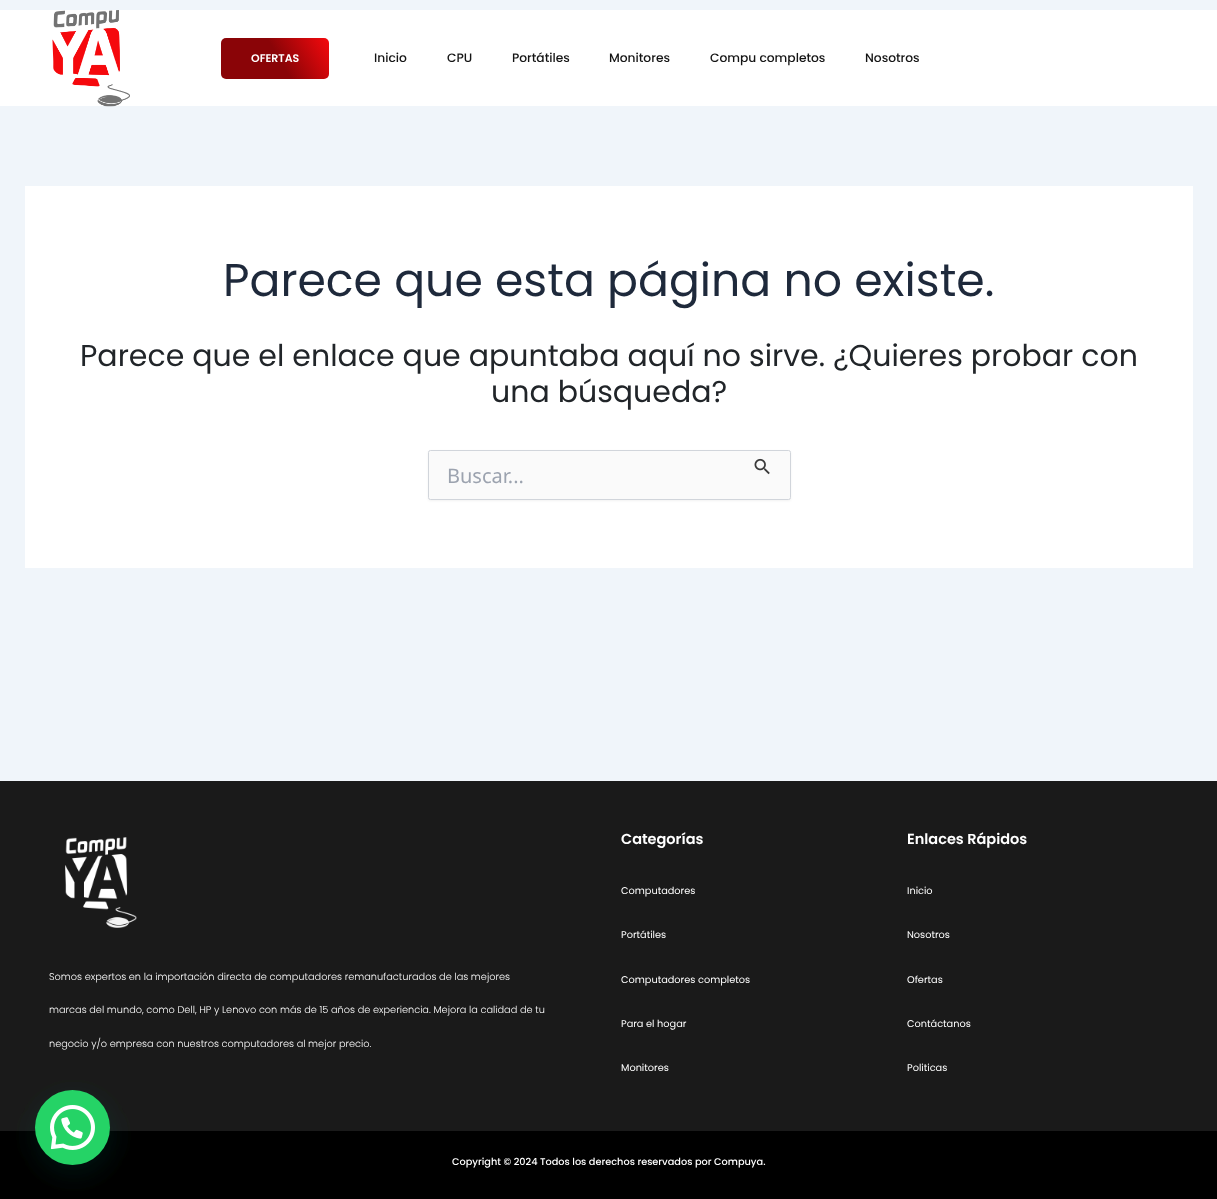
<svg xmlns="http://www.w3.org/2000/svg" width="1217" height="1199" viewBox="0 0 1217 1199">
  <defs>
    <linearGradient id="g1" gradientUnits="userSpaceOnUse" x1="226" y1="87" x2="324" y2="30"><stop offset="0.53" stop-color="#8a0407"/><stop offset="1" stop-color="#f5090d"/></linearGradient>
    <filter id="blur1" x="-50%" y="-200%" width="200%" height="500%"><feGaussianBlur stdDeviation="1"/></filter>
    <filter id="blur2" x="-50%" y="-200%" width="200%" height="500%"><feGaussianBlur stdDeviation="15"/></filter>
  </defs>
  <rect width="100%" height="100%" fill="#f0f5fa"/>
  <rect x="0" y="10" width="1217" height="96" fill="#ffffff"/>
  <image x="52" y="10" width="78" height="97" href="img1.png"/>
  <rect x="221" y="38" width="108" height="41" rx="5" fill="url(#g1)"/>
  <text x="251" y="62" font-family="Poppins" font-size="11" font-weight="600" fill="#ffffff">OFERTAS</text>
  <text x="374" y="62" font-family="Poppins" font-size="12.25" font-weight="500" fill="#141414">Inicio</text>
  <text x="447" y="62" font-family="Poppins" font-size="12.25" font-weight="500" fill="#141414">CPU</text>
  <text x="512" y="62" font-family="Poppins" font-size="12.25" font-weight="500" fill="#141414">Portátiles</text>
  <text x="609" y="62" font-family="Poppins" font-size="12.25" font-weight="500" fill="#141414">Monitores</text>
  <text x="710" y="62" font-family="Poppins" font-size="12.25" font-weight="500" fill="#141414">Compu completos</text>
  <text x="865" y="62" font-family="Poppins" font-size="12.25" font-weight="500" fill="#141414">Nosotros</text>
  <rect x="25" y="186" width="1168" height="382" fill="#ffffff"/>
  <text x="223" y="296" font-family="Poppins" font-size="45.75" fill="#1e293b">Parece que esta página no existe.</text>
  <text x="80" y="366" font-family="Poppins" font-size="30" fill="#212529">Parece que el enlace que apuntaba aquí no sirve. ¿Quieres probar con</text>
  <text x="491" y="402" font-family="Poppins" font-size="30" fill="#212529">una búsqueda?</text>
  <rect x="428" y="451" width="363" height="50" rx="2.5" fill="#000000" fill-opacity="0.05" filter="url(#blur1)"/>
  <rect x="428.5" y="450.5" width="362" height="49" rx="2" fill="#fafafa" stroke="#d1d5db"/>
  <text x="447" y="483" font-family="Noto Sans" font-size="20" fill="#9ca3af">Buscar...</text>
  <image x="754" y="458" width="16" height="17" href="img2.png"/>
  <rect x="0" y="781" width="1217" height="350" fill="#1a1a1a"/>
  <image x="65" y="837" width="72" height="91" href="img3.png"/>
  <text x="49" y="980" font-family="Poppins" font-size="9.75" font-weight="300" fill="#ffffff">Somos expertos en la importación directa de computadores remanufacturados de las mejores</text>
  <text x="49" y="1013" font-family="Poppins" font-size="9.75" font-weight="300" fill="#ffffff">marcas del mundo, como Dell, HP y Lenovo con más de 15 años de experiencia. Mejora la calidad de tu</text>
  <text x="49" y="1047" font-family="Poppins" font-size="9.75" font-weight="300" fill="#ffffff">negocio y/o empresa con nuestros computadores al mejor precio.</text>
  <text x="621" y="844" font-family="Poppins" font-size="14.5" font-weight="600" fill="#ffffff">Categorías</text>
  <text x="621" y="894" font-family="Poppins" font-size="9.75" fill="#ffffff">Computadores</text>
  <text x="621" y="938" font-family="Poppins" font-size="9.75" fill="#ffffff">Portátiles</text>
  <text x="621" y="983" font-family="Poppins" font-size="9.75" fill="#ffffff">Computadores completos</text>
  <text x="621" y="1027" font-family="Poppins" font-size="9.75" fill="#ffffff">Para el hogar</text>
  <text x="621" y="1071" font-family="Poppins" font-size="9.75" fill="#ffffff">Monitores</text>
  <text x="907" y="844" font-family="Poppins" font-size="14.5" font-weight="600" fill="#ffffff">Enlaces Rápidos</text>
  <text x="907" y="894" font-family="Poppins" font-size="9.75" fill="#ffffff">Inicio</text>
  <text x="907" y="938" font-family="Poppins" font-size="9.75" fill="#ffffff">Nosotros</text>
  <text x="907" y="983" font-family="Poppins" font-size="9.75" fill="#ffffff">Ofertas</text>
  <text x="907" y="1027" font-family="Poppins" font-size="9.75" fill="#ffffff">Contáctanos</text>
  <text x="907" y="1071" font-family="Poppins" font-size="9.75" fill="#ffffff">Politicas</text>
  <rect x="0" y="1131" width="1217" height="68" fill="#000000"/>
  <text x="452" y="1165" font-family="Poppins" font-size="9.75" font-weight="500" fill="#ffffff">Copyright © 2024 Todos los derechos reservados por Compuya.</text>
  <rect x="36" y="1098" width="75" height="75" rx="37.5" fill="#075e54" fill-opacity="0.24" filter="url(#blur2)"/>
  <circle cx="72.5" cy="1127.5" r="37.5" fill="#25d366"/>
  <image x="50" y="1105" width="45" height="45" href="img4.png"/>
</svg>
